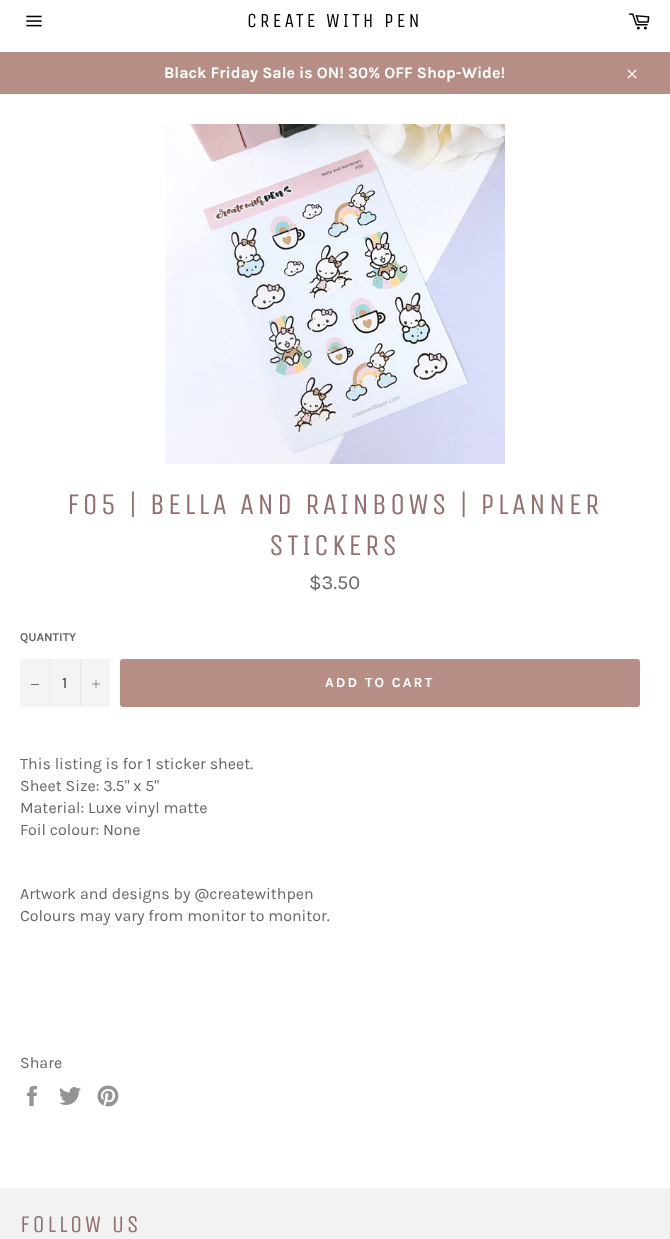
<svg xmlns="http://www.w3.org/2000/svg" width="670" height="1239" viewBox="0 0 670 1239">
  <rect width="100%" height="100%" fill="#ffffff"/>
  <image x="26" y="15" width="16" height="12" href="img1.png"/>
  <text x="247" y="27" font-family="Unica One" font-size="20" letter-spacing="3" fill="#000000">CREATE WITH PEN</text>
  <image x="628" y="13" width="22" height="17" href="img2.png"/>
  <rect x="0" y="52" width="670" height="42" fill="#b68e85"/>
  <text x="164" y="78" font-family="Karla" font-size="16" font-weight="bold" fill="#ffffff">Black Friday Sale is ON! 30% OFF Shop-Wide!</text>
  <image x="627" y="69" width="10" height="10" href="img3.png"/>
  <image x="165" y="124" width="340" height="340" href="img4.png"/>
  <text x="67" y="514" font-family="Unica One" font-size="30" letter-spacing="3" fill="#956f6f">F05 | BELLA AND RAINBOWS | PLANNER</text>
  <text x="269" y="555" font-family="Unica One" font-size="30" letter-spacing="3" fill="#956f6f">STICKERS</text>
  <text x="309" y="589" font-family="Karla" font-size="20" fill="#666666">$3.50</text>
  <text x="20" y="641" font-family="Karla" font-size="12" font-weight="bold" fill="#666666">QUANTITY</text>
  <rect x="20" y="659" width="90" height="48" fill="#f4f4f4"/>
  <rect x="49" y="659" width="1" height="48" fill="#e7e7e7"/>
  <rect x="31" y="684" width="8" height="1" fill="#666666"/>
  <text x="62" y="688" font-family="Karla" font-size="16" fill="#333333">1</text>
  <rect x="80" y="659" width="1" height="48" fill="#e7e7e7"/>
  <image x="92" y="680" width="8" height="8" href="img5.png"/>
  <rect x="120" y="659" width="520" height="48" rx="3" fill="#b68e85"/>
  <text x="325" y="687" font-family="Karla" font-size="14" font-weight="bold" letter-spacing="2.1" fill="#ffffff">ADD TO CART</text>
  <text x="20" y="769" font-family="Karla" font-size="16" fill="#666666">This listing is for 1 sticker sheet.</text>
  <text x="20" y="791" font-family="Karla" font-size="16" fill="#666666">Sheet Size: 3.5" x 5"</text>
  <text x="20" y="813" font-family="Karla" font-size="16" fill="#666666">Material: Luxe vinyl matte</text>
  <text x="20" y="835" font-family="Karla" font-size="16" fill="#666666">Foil colour: None</text>
  <text x="20" y="899" font-family="Karla" font-size="16" fill="#666666">Artwork and designs by @createwithpen</text>
  <text x="20" y="921" font-family="Karla" font-size="16" fill="#666666">Colours may vary from monitor to monitor.</text>
  <text x="20" y="1068" font-family="Karla" font-size="16" fill="#666666">Share</text>
  <image x="27" y="1086" width="10" height="20" href="img6.png"/>
  <image x="59" y="1087" width="22" height="18" href="img7.png"/>
  <image x="97" y="1085" width="22" height="22" href="img8.png"/>
  <rect x="0" y="1188" width="670" height="51" fill="#f2f2f2"/>
  <text x="20" y="1232" font-family="Unica One" font-size="24" letter-spacing="2.5" fill="#956f6f">FOLLOW US</text>
</svg>
